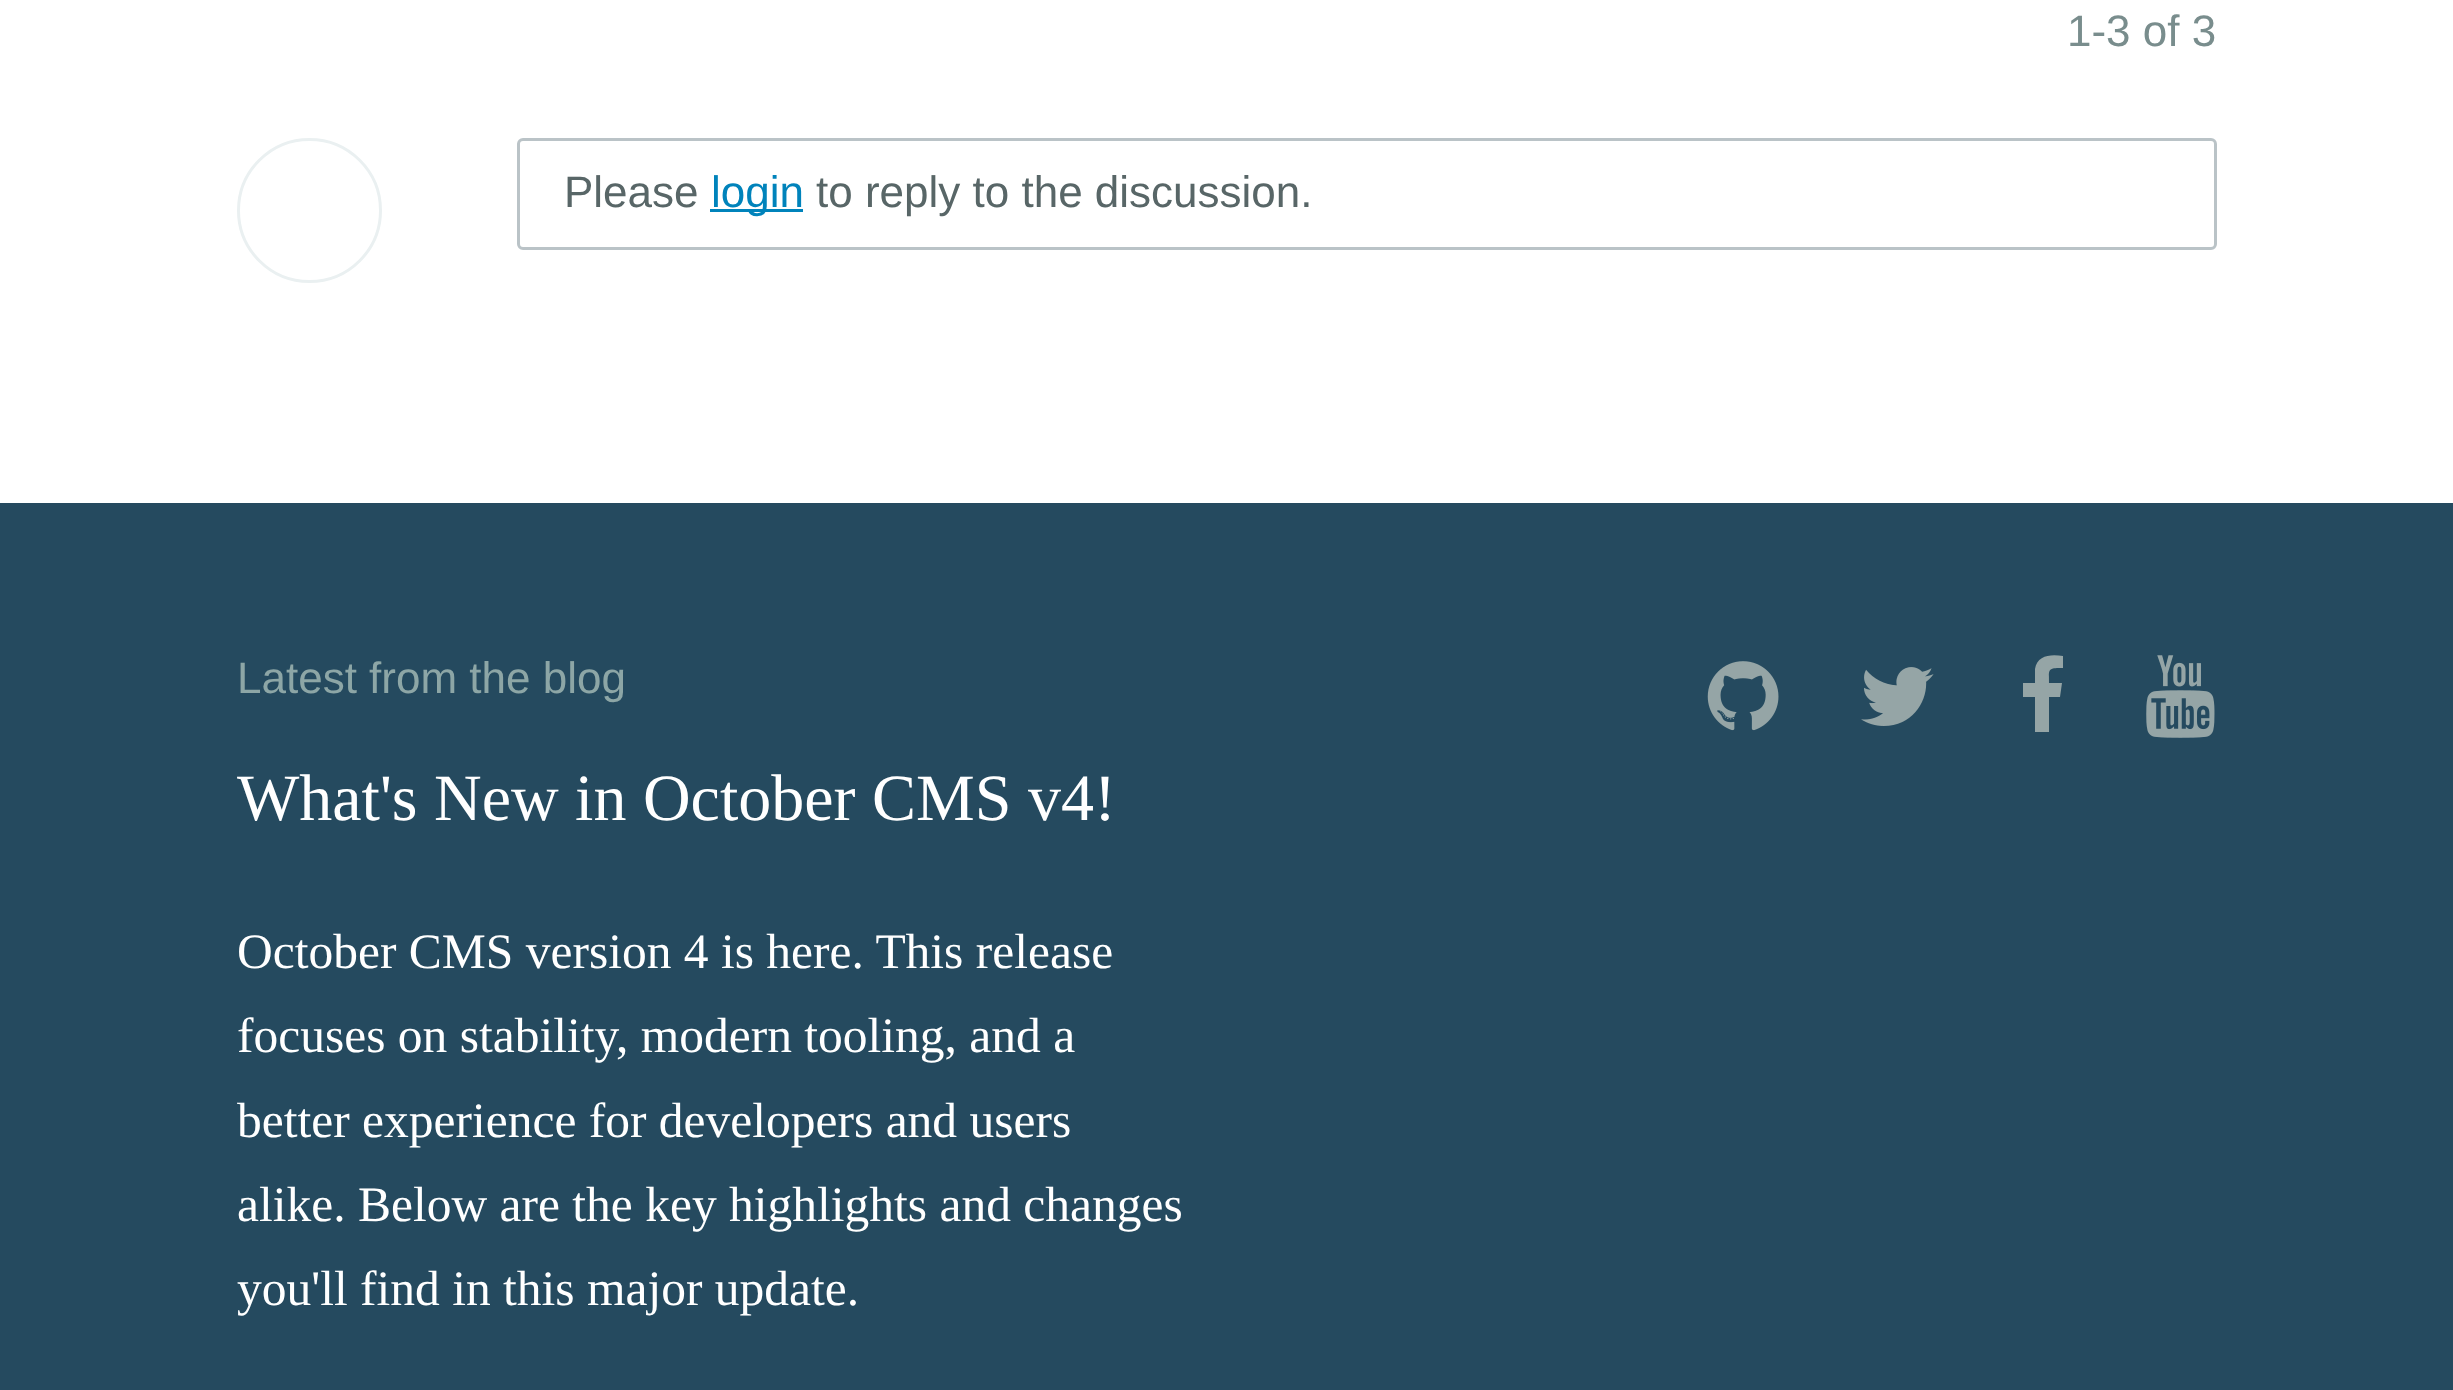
<svg xmlns="http://www.w3.org/2000/svg" width="2453" height="1390" viewBox="0 0 2453 1390">
  <rect width="100%" height="100%" fill="#ffffff"/>
  <text x="2067" y="46" font-family="Liberation Sans" font-size="44" fill="#798d8d">1-3 of 3</text>
  <circle cx="309.5" cy="210.5" r="71" fill="none" stroke="#eaf0f1" stroke-width="3"/>
  <rect x="518.5" y="139.5" width="1697" height="109" rx="4.5" fill="none" stroke="#bac3c7" stroke-width="3"/>
  <text x="564" y="207" font-family="Liberation Sans" font-size="44" fill="#586667">Please</text>
  <rect x="710" y="209" width="93" height="3" fill="#0083bb"/>
  <text x="711" y="207" font-family="Liberation Sans" font-size="44" fill="#0083bb">login</text>
  <text x="816" y="207" font-family="Liberation Sans" font-size="44" fill="#586667">to reply to the discussion.</text>
  <rect x="0" y="503" width="2453" height="887" fill="#254a5f"/>
  <text x="237" y="693" font-family="Liberation Sans" font-size="44" fill="#8da6a6">Latest from the blog</text>
  <text x="237" y="820" font-family="Liberation Serif" font-size="66" fill="#ffffff">What's New in October CMS v4!</text>
  <text x="237" y="968" font-family="Liberation Serif" font-size="49.5" fill="#ffffff">October CMS version 4 is here. This release</text>
  <text x="237" y="1052" font-family="Liberation Serif" font-size="49.5" fill="#ffffff">focuses on stability, modern tooling, and a</text>
  <text x="237" y="1137" font-family="Liberation Serif" font-size="49.5" fill="#ffffff">better experience for developers and users</text>
  <text x="237" y="1221" font-family="Liberation Serif" font-size="49.5" fill="#ffffff">alike. Below are the key highlights and changes</text>
  <text x="237" y="1305" font-family="Liberation Serif" font-size="49.5" fill="#ffffff">you'll find in this major update.</text>
  <image x="1707" y="661" width="72" height="70" href="img1.png"/>
  <image x="1861" y="667" width="73" height="59" href="img2.png"/>
  <path d="M2063 656C2051 654 2037 655 2035 669V683H2023V697H2035V732H2049V697H2060L2062 683H2049C2049 669 2047 668 2063 668Z" fill="#95a5a6"/>
  <image x="2146" y="655" width="69" height="83" href="img3.png"/>
</svg>
